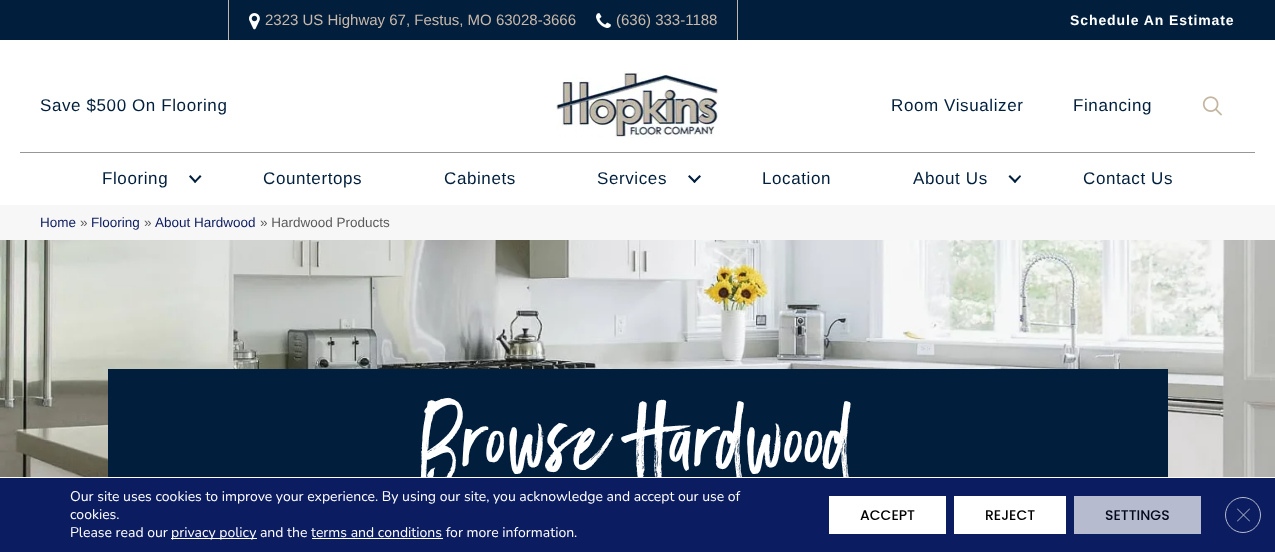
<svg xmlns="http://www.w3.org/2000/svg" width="1275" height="552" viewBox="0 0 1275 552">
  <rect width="100%" height="100%" fill="#ffffff"/>
  <rect x="0" y="0" width="1275" height="40" fill="#011f3d"/>
  <rect x="228" y="0" width="1" height="40" fill="#c0b6ab"/>
  <image x="249" y="13" width="11" height="17" href="img1.png"/>
  <text x="265" y="25" font-family="Liberation Sans" font-size="15" fill="#c9b9aa">2323 US Highway 67, Festus, MO 63028-3666</text>
  <image x="596" y="13" width="15" height="15" href="img2.png"/>
  <text x="616" y="25" font-family="Liberation Sans" font-size="15" fill="#c9b9aa">(636) 333-1188</text>
  <rect x="737" y="0" width="1" height="40" fill="#c0b6ab"/>
  <text x="1070" y="25" font-family="Liberation Sans" font-size="14" font-weight="bold" letter-spacing="0.9" fill="#ffffff">Schedule An Estimate</text>
  <text x="40" y="111" font-family="Liberation Sans" font-size="17" letter-spacing="0.6" fill="#011f3d">Save $500 On Flooring</text>
  <image x="556" y="71" width="163" height="67" href="img3.png"/>
  <text x="891" y="111" font-family="Liberation Sans" font-size="17" letter-spacing="0.6" fill="#011f3d">Room Visualizer</text>
  <text x="1073" y="111" font-family="Liberation Sans" font-size="17" letter-spacing="0.6" fill="#011f3d">Financing</text>
  <image x="1202" y="96" width="20" height="20" href="img4.png"/>
  <rect x="20" y="152" width="1235" height="1" fill="#979797"/>
  <text x="102" y="184" font-family="Liberation Sans" font-size="17" letter-spacing="0.6" fill="#011f3d">Flooring</text>
  <path d="M200 175L201.5 176.5L195 183L194 181.5Z" fill="#011f3d"/>
  <path d="M190.5 175L196.5 181.5L195 183L189 176.5Z" fill="#011f3d"/>
  <text x="263" y="184" font-family="Liberation Sans" font-size="17" letter-spacing="0.6" fill="#011f3d">Countertops</text>
  <text x="444" y="184" font-family="Liberation Sans" font-size="17" letter-spacing="0.6" fill="#011f3d">Cabinets</text>
  <text x="597" y="184" font-family="Liberation Sans" font-size="17" letter-spacing="0.6" fill="#011f3d">Services</text>
  <path d="M699.5 175L701 176.5L694.5 183L693 181.5Z" fill="#011f3d"/>
  <path d="M689.5 175L696 181.5L694.5 183L688 176.5Z" fill="#011f3d"/>
  <text x="762" y="184" font-family="Liberation Sans" font-size="17" letter-spacing="0.6" fill="#011f3d">Location</text>
  <text x="913" y="184" font-family="Liberation Sans" font-size="17" letter-spacing="0.6" fill="#011f3d">About Us</text>
  <path d="M1020 175L1021 176.5L1015 183L1013.5 181.5Z" fill="#011f3d"/>
  <path d="M1010 175L1016.5 181.5L1015 183L1008.5 176.5Z" fill="#011f3d"/>
  <text x="1083" y="184" font-family="Liberation Sans" font-size="17" letter-spacing="0.6" fill="#011f3d">Contact Us</text>
  <rect x="0" y="205" width="1275" height="35" fill="#f7f7f7"/>
  <text x="40" y="227" font-family="Liberation Sans" font-size="13.5" fill="#0b1c60">Home</text>
  <text x="80" y="227" font-family="Liberation Sans" font-size="13.5" fill="#5b5b5b">»</text>
  <text x="91" y="227" font-family="Liberation Sans" font-size="13.5" fill="#0b1c60">Flooring</text>
  <text x="144" y="227" font-family="Liberation Sans" font-size="13.5" fill="#5b5b5b">»</text>
  <text x="155" y="227" font-family="Liberation Sans" font-size="13.5" fill="#0b1c60">About Hardwood</text>
  <text x="260" y="227" font-family="Liberation Sans" font-size="13.5" fill="#5b5b5b">» Hardwood Products</text>
  <image x="0" y="240" width="1275" height="237" href="img5.png"/>
  <rect x="108" y="369" width="1060" height="108" fill="#011f3d"/>
  <text x="420" y="464" font-family="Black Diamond" font-size="85" font-weight="900" letter-spacing="1.4" fill="#ffffff">Browse Hardwood</text>
  <rect x="0" y="478" width="1275" height="74" fill="#0b1c60"/>
  <text x="70" y="501" font-family="Nunito" font-size="14" fill="#ffffff">Our site uses cookies to improve your experience. By using our site, you acknowledge and accept our use of</text>
  <text x="70" y="519" font-family="Nunito" font-size="14" fill="#ffffff">cookies.</text>
  <text x="70" y="537" font-family="Nunito" font-size="14" fill="#ffffff">Please read our</text>
  <rect x="171" y="538" width="86" height="1" fill="#ffffff"/>
  <text x="171" y="537" font-family="Nunito" font-size="14" fill="#ffffff">privacy policy and the terms and conditions for more information.</text>
  <rect x="312" y="538" width="131" height="1" fill="#ffffff"/>
  <rect x="829" y="496" width="117" height="38" fill="#ffffff"/>
  <text x="860" y="520" font-family="Poppins" font-size="14" font-weight="500" fill="#000000">ACCEPT</text>
  <rect x="954" y="496" width="112" height="38" fill="#ffffff"/>
  <text x="985" y="520" font-family="Poppins" font-size="14" font-weight="500" fill="#000000">REJECT</text>
  <rect x="1074" y="496" width="127" height="38" fill="#b6bbcf"/>
  <text x="1105" y="520" font-family="Poppins" font-size="14" font-weight="500" fill="#03081d">SETTINGS</text>
  <circle cx="1243" cy="515" r="17.5" fill="none" stroke="#b6bbcf"/>
  <path d="M1249.5 508.5L1250 509L1237.5 521.5L1237 521Z" fill="#b6bbcf"/>
  <path d="M1237 509L1237.5 508.5L1250 521L1249.5 521.5Z" fill="#b6bbcf"/>
</svg>
